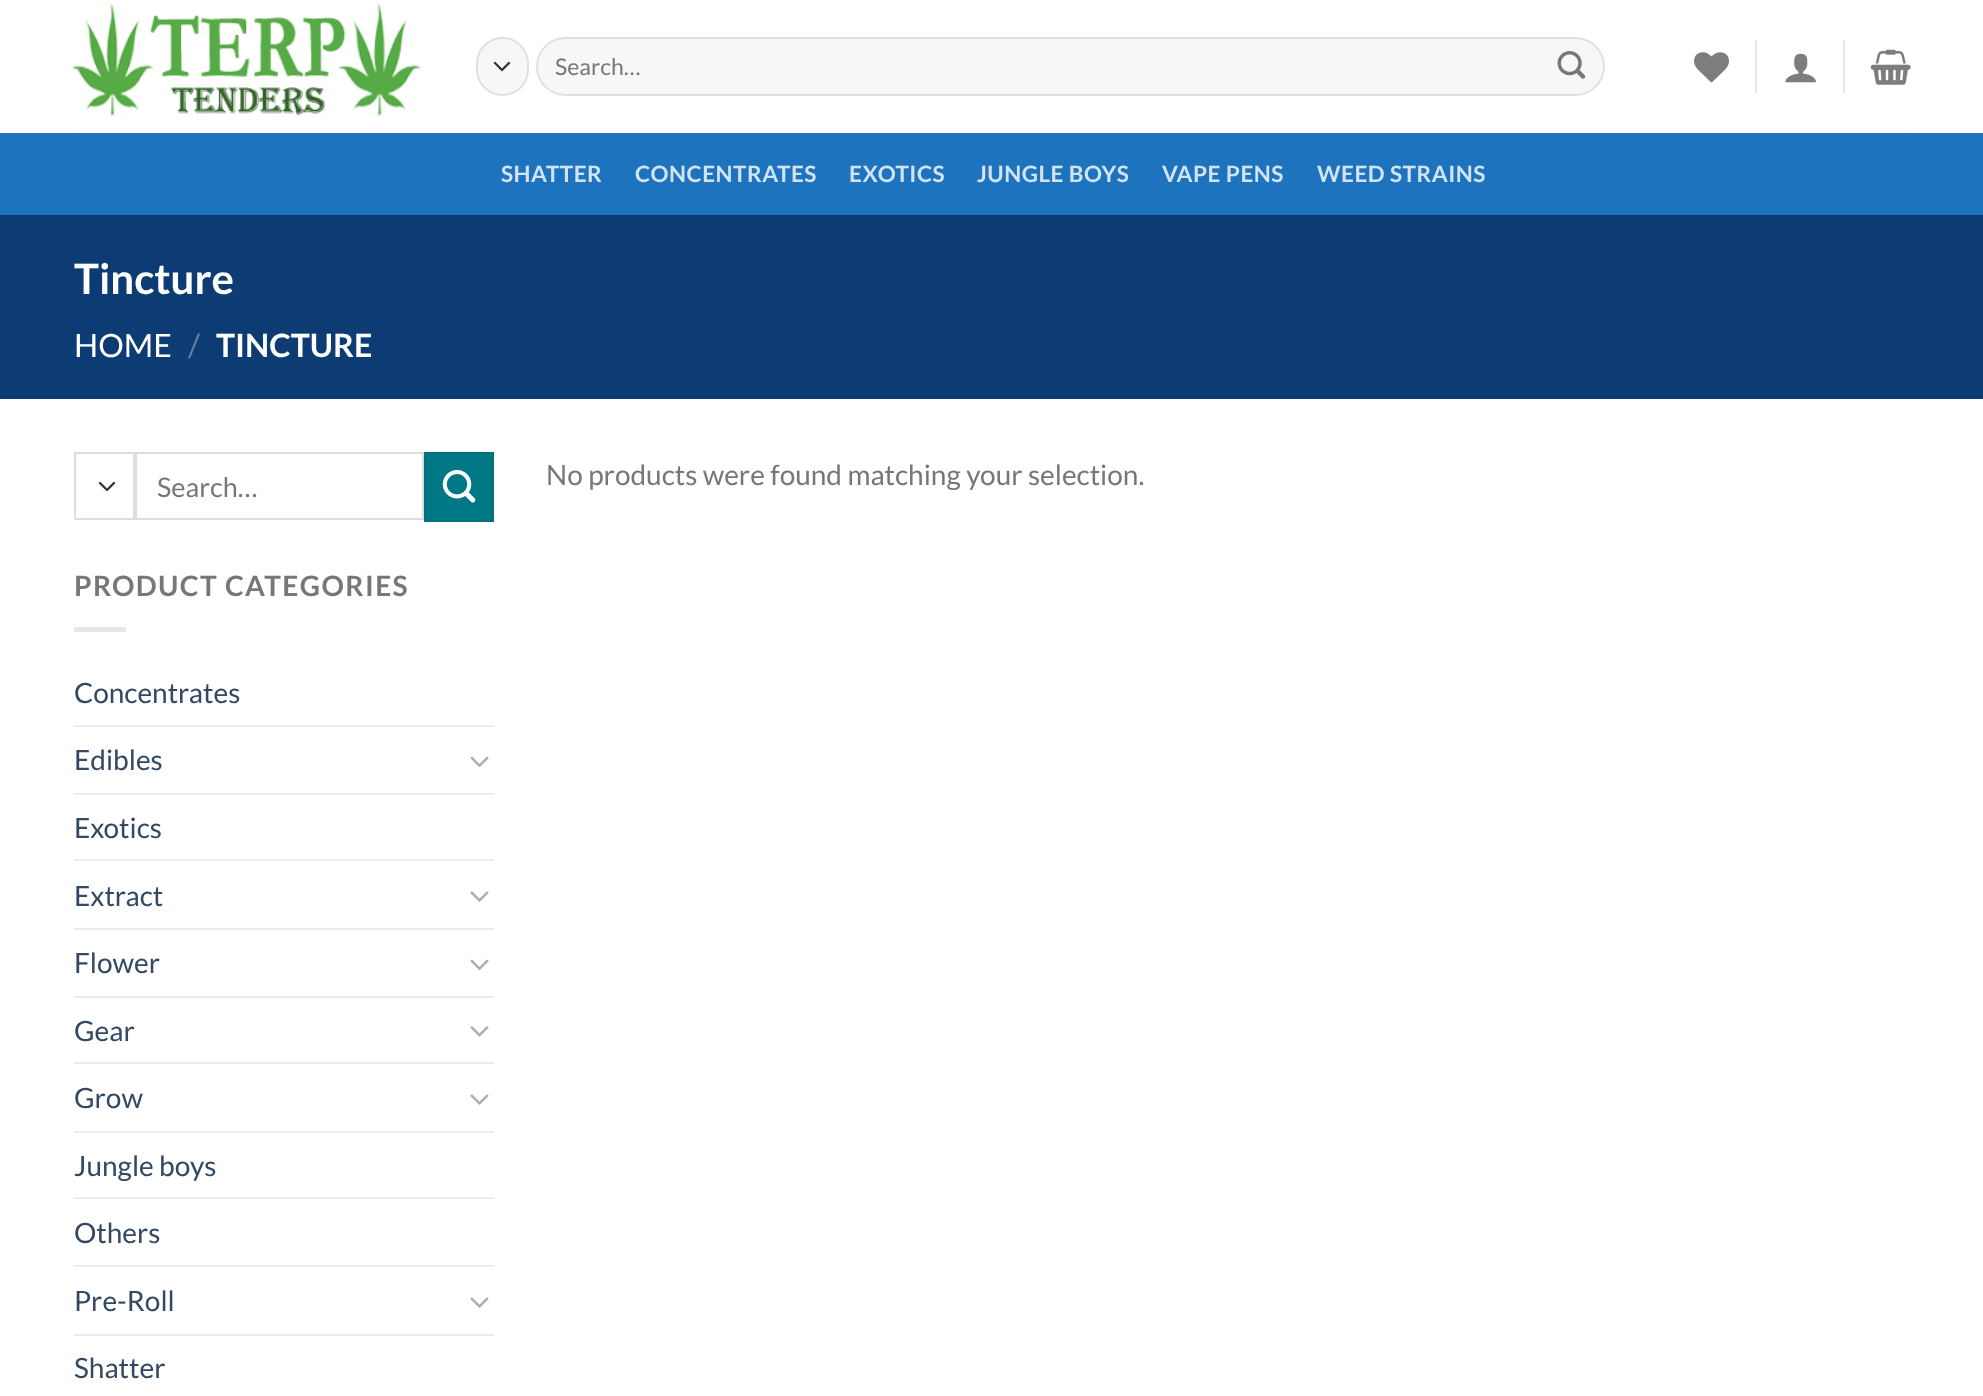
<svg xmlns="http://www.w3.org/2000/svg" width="1983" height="1396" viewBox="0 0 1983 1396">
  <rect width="100%" height="100%" fill="#ffffff"/>
  <image x="73" y="2" width="348" height="114" href="img1.png"/>
  <rect x="476" y="37" width="53" height="59" rx="26.5" fill="#f7f7f7"/>
  <path d="M495 63L502 70L509 63" fill="none" stroke="#333333" stroke-width="2.3" stroke-linecap="round" stroke-linejoin="round"/>
  <rect x="477" y="38" width="51" height="57" rx="25.5" fill="none" stroke="#000000" stroke-opacity="0.09" stroke-width="2"/>
  <rect x="536" y="37" width="1069" height="59" rx="29.5" fill="#f7f7f7"/>
  <rect x="537" y="38" width="1067" height="57" rx="28.5" fill="none" stroke="#000000" stroke-opacity="0.09" stroke-width="2"/>
  <text x="555" y="75" font-family="Lato" font-size="23" fill="#777777">Search…</text>
  <image x="1557" y="51" width="29" height="28" href="img2.png"/>
  <image x="1694" y="52" width="35" height="31" href="img3.png"/>
  <rect x="1755" y="40" width="2" height="53" fill="#e6e6e6"/>
  <image x="1785" y="53" width="31" height="30" href="img4.png"/>
  <rect x="1843" y="40" width="2" height="53" fill="#e6e6e6"/>
  <image x="1870" y="49" width="41" height="36" href="img5.png"/>
  <rect x="0" y="133" width="1983" height="82" fill="#1e73be"/>
  <rect x="74" y="133" width="1837" height="2" fill="#2773b7"/>
  <text x="501" y="182" font-family="Lato" font-size="22.5" font-weight="bold" letter-spacing="0.5" fill="#d2e3f2">SHATTER</text>
  <text x="635" y="182" font-family="Lato" font-size="22.5" font-weight="bold" letter-spacing="0.5" fill="#d2e3f2">CONCENTRATES</text>
  <text x="849" y="182" font-family="Lato" font-size="22.5" font-weight="bold" letter-spacing="0.5" fill="#d2e3f2">EXOTICS</text>
  <text x="977" y="182" font-family="Lato" font-size="22.5" font-weight="bold" letter-spacing="0.5" fill="#d2e3f2">JUNGLE BOYS</text>
  <text x="1162" y="182" font-family="Lato" font-size="22.5" font-weight="bold" letter-spacing="0.5" fill="#d2e3f2">VAPE PENS</text>
  <text x="1317" y="182" font-family="Lato" font-size="22.5" font-weight="bold" letter-spacing="0.5" fill="#d2e3f2">WEED STRAINS</text>
  <rect x="0" y="215" width="1983" height="184" fill="#0d3c75"/>
  <text x="74" y="294" font-family="Lato" font-size="42" font-weight="bold" fill="#ffffff">Tincture</text>
  <text x="74" y="357" font-family="Lato" font-size="32" fill="#ffffff">HOME</text>
  <text x="188" y="357" font-family="Lato" font-size="32" fill="#6280a5">/</text>
  <text x="216" y="357" font-family="Lato" font-size="32" font-weight="bold" fill="#ffffff">TINCTURE</text>
  <path d="M100 483L107 490L114 483" fill="none" stroke="#333333" stroke-width="2.3" stroke-linecap="round" stroke-linejoin="round"/>
  <rect x="75" y="453" width="59" height="66" fill="none" stroke="#dddddd" stroke-width="2"/>
  <rect x="136" y="453" width="287" height="66" fill="none" stroke="#dddddd" stroke-width="2"/>
  <text x="157" y="497" font-family="Lato" font-size="27" fill="#777777">Search…</text>
  <rect x="425" y="453" width="68" height="68" fill="#007784" stroke="#00717d" stroke-width="2"/>
  <image x="442" y="470" width="34" height="33" href="img6.png"/>
  <text x="74" y="596" font-family="Lato" font-size="28" font-weight="bold" letter-spacing="1.4" fill="#777777">PRODUCT CATEGORIES</text>
  <rect x="74" y="627" width="52" height="5" fill="#e6e6e6"/>
  <text x="74" y="703" font-family="Lato" font-size="28" fill="#334862">Concentrates</text>
  <rect x="74" y="725" width="420" height="2" fill="#ececec"/>
  <text x="74" y="770" font-family="Lato" font-size="28" fill="#334862">Edibles</text>
  <image x="470" y="756" width="19" height="12" href="img7.png"/>
  <rect x="74" y="793" width="420" height="2" fill="#ececec"/>
  <text x="74" y="838" font-family="Lato" font-size="28" fill="#334862">Exotics</text>
  <rect x="74" y="859" width="420" height="2" fill="#ececec"/>
  <text x="74" y="906" font-family="Lato" font-size="28" fill="#334862">Extract</text>
  <image x="470" y="891" width="19" height="11" href="img8.png"/>
  <rect x="74" y="928" width="420" height="2" fill="#ececec"/>
  <text x="74" y="973" font-family="Lato" font-size="28" fill="#334862">Flower</text>
  <image x="470" y="959" width="19" height="12" href="img7.png"/>
  <rect x="74" y="996" width="420" height="2" fill="#ececec"/>
  <text x="74" y="1041" font-family="Lato" font-size="28" fill="#334862">Gear</text>
  <image x="470" y="1026" width="19" height="11" href="img9.png"/>
  <rect x="74" y="1062" width="420" height="2" fill="#ececec"/>
  <text x="74" y="1108" font-family="Lato" font-size="28" fill="#334862">Grow</text>
  <image x="470" y="1094" width="19" height="11" href="img8.png"/>
  <rect x="74" y="1131" width="420" height="2" fill="#ececec"/>
  <text x="74" y="1176" font-family="Lato" font-size="28" fill="#334862">Jungle boys</text>
  <rect x="74" y="1197" width="420" height="2" fill="#ececec"/>
  <text x="74" y="1243" font-family="Lato" font-size="28" fill="#334862">Others</text>
  <rect x="74" y="1265" width="420" height="2" fill="#ececec"/>
  <text x="74" y="1311" font-family="Lato" font-size="28" fill="#334862">Pre-Roll</text>
  <image x="470" y="1297" width="19" height="11" href="img8.png"/>
  <rect x="74" y="1334" width="420" height="2" fill="#ececec"/>
  <text x="74" y="1378" font-family="Lato" font-size="28" fill="#334862">Shatter</text>
  <text x="546" y="485" font-family="Lato" font-size="28" fill="#777777">No products were found matching your selection.</text>
</svg>
